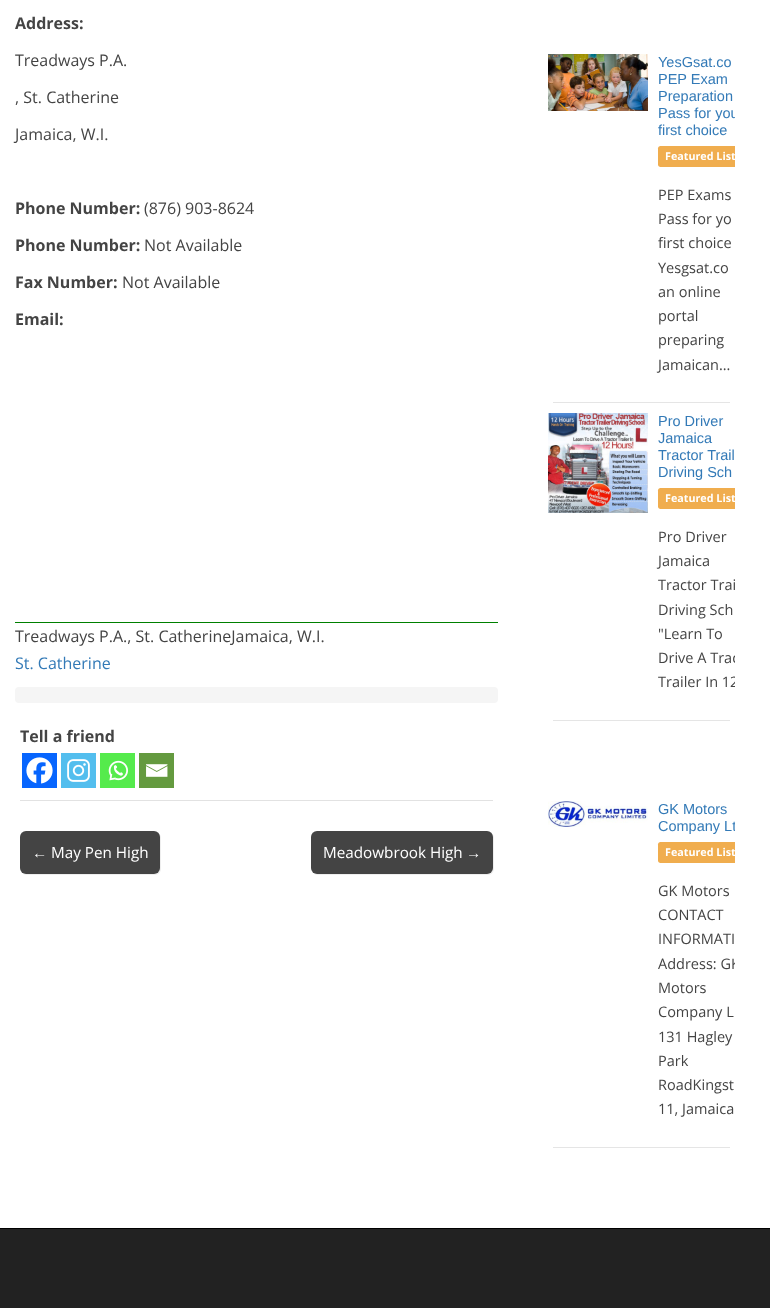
<svg xmlns="http://www.w3.org/2000/svg" width="770" height="1308" viewBox="0 0 770 1308">
  <defs>
    <clipPath id="clip1"><rect x="658" y="54" width="77" height="338"/></clipPath>
    <clipPath id="clip2"><rect x="658" y="413" width="77" height="297"/></clipPath>
    <clipPath id="clip3"><rect x="658" y="801" width="77" height="336"/></clipPath>
  </defs>
  <rect width="100%" height="100%" fill="#ffffff"/>
  <rect x="20" y="800" width="473" height="1" fill="#e2e2e2"/>
  <text x="15" y="29" font-family="Open Sans" font-size="16" font-weight="bold" fill="#444444">Address:</text>
  <text x="15" y="66" font-family="Open Sans" font-size="16" fill="#444444">Treadways P.A.</text>
  <text x="15" y="103" font-family="Open Sans" font-size="16" fill="#444444">, St. Catherine</text>
  <text x="15" y="140" font-family="Open Sans" font-size="16" fill="#444444">Jamaica, W.I.</text>
  <text x="15" y="214" font-family="Open Sans" font-size="16" font-weight="bold" fill="#444444">Phone Number:</text>
  <text x="144" y="214" font-family="Open Sans" font-size="16" fill="#444444">(876) 903-8624</text>
  <text x="15" y="251" font-family="Open Sans" font-size="16" font-weight="bold" fill="#444444">Phone Number:</text>
  <text x="144" y="251" font-family="Open Sans" font-size="16" fill="#444444">Not Available</text>
  <text x="15" y="288" font-family="Open Sans" font-size="16" font-weight="bold" fill="#444444">Fax Number:</text>
  <text x="122" y="288" font-family="Open Sans" font-size="16" fill="#444444">Not Available</text>
  <text x="15" y="325" font-family="Open Sans" font-size="16" font-weight="bold" fill="#444444">Email:</text>
  <rect x="15" y="622" width="483" height="1" fill="#008000"/>
  <text x="15" y="642" font-family="Open Sans" font-size="16" fill="#444444">Treadways P.A., St. CatherineJamaica, W.I.</text>
  <text x="15" y="669" font-family="Open Sans" font-size="16" fill="#337ab7">St. Catherine</text>
  <rect x="15" y="687" width="483" height="16" rx="4" fill="#f5f5f5"/>
  <text x="20" y="742" font-family="Open Sans" font-size="16" font-weight="bold" fill="#444444">Tell a friend</text>
  <rect x="22" y="753" width="35" height="35" fill="#0765fe"/>
  <image x="26" y="757" width="27" height="27" href="img1.png"/>
  <rect x="61" y="753" width="35" height="35" fill="#53beee"/>
  <image x="67" y="759" width="23" height="23" href="img2.png"/>
  <rect x="100" y="753" width="35" height="35" fill="#55eb4c"/>
  <image x="108" y="760" width="20" height="21" href="img3.png"/>
  <rect x="139" y="753" width="35" height="35" fill="#649a3f"/>
  <image x="146" y="764" width="22" height="13" href="img4.png"/>
  <path d="M22 873C23 874 25 875 27 875H155C158 875 161 872 161 869V838C161 836 160 834 159 833C160 834 160 836 160 837V868C160 871 157 874 154 874H26C25 874 23 874 22 873Z" fill="#eeeeee"/>
  <rect x="20" y="831" width="140" height="43" rx="6" fill="#444444"/>
  <text x="32" y="858" font-family="Liberation Sans" font-size="15.25" fill="#ffffff">←</text>
  <text x="51" y="858" font-family="Open Sans" font-size="15.25" fill="#ffffff">May Pen High</text>
  <path d="M313 873C314 874 316 875 318 875H488C491 875 494 872 494 869V838C494 836 493 834 492 833C493 834 493 836 493 837V868C493 871 490 874 487 874H317C316 874 314 874 313 873Z" fill="#eeeeee"/>
  <rect x="311" y="831" width="182" height="43" rx="6" fill="#444444"/>
  <text x="323" y="858" font-family="Open Sans" font-size="15.25" fill="#ffffff">Meadowbrook High</text>
  <text x="466" y="858" font-family="Liberation Sans" font-size="15.25" fill="#ffffff">→</text>
  <image x="548" y="54" width="100" height="57" href="img5.png"/>
  <text x="658" y="67" font-family="Liberation Sans" font-size="14.5" fill="#337ab7">YesGsat.co</text>
  <text x="658" y="84" font-family="Liberation Sans" font-size="14.5" fill="#337ab7">PEP Exam</text>
  <text x="658" y="101" font-family="Liberation Sans" font-size="14.5" fill="#337ab7">Preparation</text>
  <g clip-path="url(#clip1)">
    <text x="658" y="118" font-family="Liberation Sans" font-size="14.5" fill="#337ab7">Pass for you</text>
  </g>
  <text x="658" y="135" font-family="Liberation Sans" font-size="14.5" fill="#337ab7">first choice</text>
  <path d="M660.5 146H735V167H660.5C659 167 658 166 658 164.5V148.5C658 147 659 146 660.5 146Z" fill="#f0ad4e"/>
  <g clip-path="url(#clip1)">
    <text x="665" y="160" font-family="Open Sans" font-size="10.75" font-weight="bold" fill="#ffffff">Featured List</text>
  </g>
  <text x="658" y="200" font-family="Open Sans" font-size="14.5" fill="#444444">PEP Exams</text>
  <text x="658" y="224" font-family="Open Sans" font-size="14.5" fill="#444444">Pass for yo</text>
  <text x="658" y="248" font-family="Open Sans" font-size="14.5" fill="#444444">first choice</text>
  <text x="658" y="273" font-family="Open Sans" font-size="14.5" fill="#444444">Yesgsat.co</text>
  <text x="658" y="297" font-family="Open Sans" font-size="14.5" fill="#444444">an online</text>
  <text x="658" y="321" font-family="Open Sans" font-size="14.5" fill="#444444">portal</text>
  <text x="658" y="345" font-family="Open Sans" font-size="14.5" fill="#444444">preparing</text>
  <text x="658" y="370" font-family="Open Sans" font-size="14.5" fill="#444444">Jamaican...</text>
  <rect x="553" y="402" width="177" height="1" fill="#e5e5e5"/>
  <image x="548" y="413" width="100" height="100" href="img6.png"/>
  <text x="658" y="426" font-family="Liberation Sans" font-size="14.5" fill="#337ab7">Pro Driver</text>
  <text x="658" y="443" font-family="Liberation Sans" font-size="14.5" fill="#337ab7">Jamaica</text>
  <text x="658" y="460" font-family="Liberation Sans" font-size="14.5" fill="#337ab7">Tractor Trail</text>
  <text x="658" y="477" font-family="Liberation Sans" font-size="14.5" fill="#337ab7">Driving Sch</text>
  <path d="M660.5 488H735V509H660.5C659 509 658 508 658 506.5V490.5C658 489 659 488 660.5 488Z" fill="#f0ad4e"/>
  <g clip-path="url(#clip2)">
    <text x="665" y="502" font-family="Open Sans" font-size="10.75" font-weight="bold" fill="#ffffff">Featured List</text>
  </g>
  <text x="658" y="542" font-family="Open Sans" font-size="14.5" fill="#444444">Pro Driver</text>
  <text x="658" y="566" font-family="Open Sans" font-size="14.5" fill="#444444">Jamaica</text>
  <text x="658" y="590" font-family="Open Sans" font-size="14.5" fill="#444444">Tractor Trai</text>
  <text x="658" y="615" font-family="Open Sans" font-size="14.5" fill="#444444">Driving Sch</text>
  <text x="658" y="639" font-family="Open Sans" font-size="14.5" fill="#444444">"Learn To</text>
  <g clip-path="url(#clip2)">
    <text x="658" y="663" font-family="Open Sans" font-size="14.5" fill="#444444">Drive A Trac</text>
    <text x="658" y="687" font-family="Open Sans" font-size="14.5" fill="#444444">Trailer In 12</text>
  </g>
  <rect x="553" y="720" width="177" height="1" fill="#e5e5e5"/>
  <image x="548" y="801" width="100" height="26" href="img7.png"/>
  <text x="658" y="814" font-family="Liberation Sans" font-size="14.5" fill="#337ab7">GK Motors</text>
  <g clip-path="url(#clip3)">
    <text x="658" y="831" font-family="Liberation Sans" font-size="14.5" fill="#337ab7">Company Lt</text>
  </g>
  <path d="M660.5 842H735V863H660.5C659 863 658 862 658 860.5V844.5C658 843 659 842 660.5 842Z" fill="#f0ad4e"/>
  <g clip-path="url(#clip3)">
    <text x="665" y="856" font-family="Open Sans" font-size="10.75" font-weight="bold" fill="#ffffff">Featured List</text>
  </g>
  <text x="658" y="896" font-family="Open Sans" font-size="14.5" fill="#444444">GK Motors</text>
  <text x="658" y="920" font-family="Open Sans" font-size="14.5" fill="#444444">CONTACT</text>
  <text x="658" y="944" font-family="Open Sans" font-size="14.5" fill="#444444">INFORMATI</text>
  <g clip-path="url(#clip3)">
    <text x="658" y="969" font-family="Open Sans" font-size="14.5" fill="#444444">Address: GK</text>
  </g>
  <text x="658" y="993" font-family="Open Sans" font-size="14.5" fill="#444444">Motors</text>
  <text x="658" y="1017" font-family="Open Sans" font-size="14.5" fill="#444444">Company L</text>
  <text x="658" y="1042" font-family="Open Sans" font-size="14.5" fill="#444444">131 Hagley</text>
  <text x="658" y="1066" font-family="Open Sans" font-size="14.5" fill="#444444">Park</text>
  <text x="658" y="1090" font-family="Open Sans" font-size="14.5" fill="#444444">RoadKingst</text>
  <text x="658" y="1114" font-family="Open Sans" font-size="14.5" fill="#444444">11, Jamaica</text>
  <rect x="553" y="1147" width="177" height="1" fill="#e5e5e5"/>
  <rect x="0" y="1229" width="770" height="79" fill="#222222"/>
  <rect x="0" y="1228" width="770" height="1" fill="#000000"/>
</svg>
